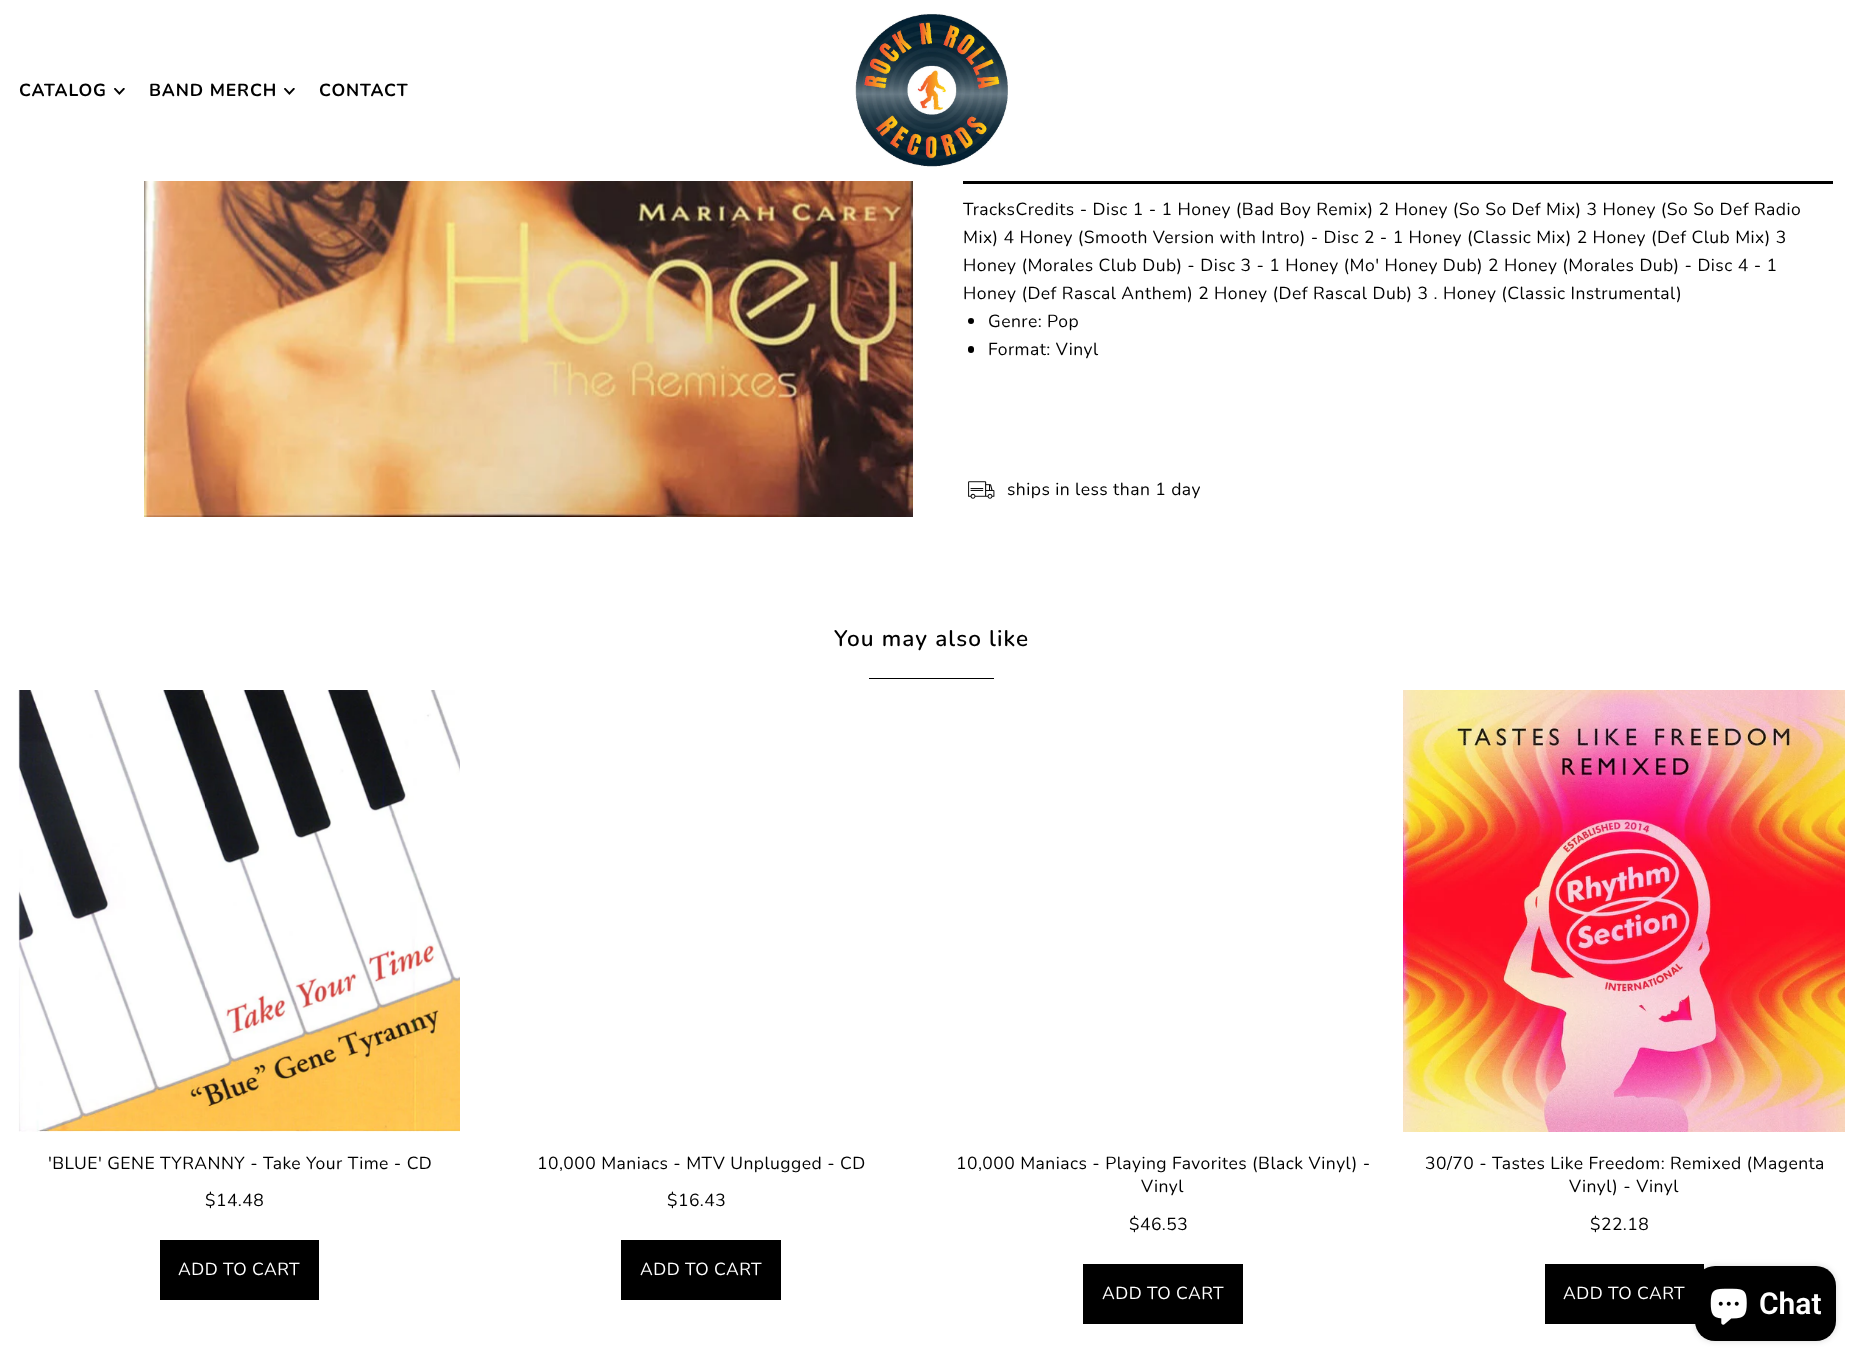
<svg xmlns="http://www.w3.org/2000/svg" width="1863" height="1367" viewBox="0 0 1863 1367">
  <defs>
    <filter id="blur1" x="-50%" y="-200%" width="200%" height="500%"><feGaussianBlur stdDeviation="3"/></filter>
  </defs>
  <rect width="100%" height="100%" fill="#ffffff"/>
  <text x="19" y="96" font-family="Nunito" font-size="17.5" font-weight="bold" letter-spacing="0.9" fill="#000000">CATALOG</text>
  <image x="114" y="88" width="11" height="7" href="img1.png"/>
  <text x="149" y="96" font-family="Nunito" font-size="17.5" font-weight="bold" letter-spacing="0.9" fill="#000000">BAND MERCH</text>
  <image x="284" y="88" width="11" height="7" href="img1.png"/>
  <text x="319" y="96" font-family="Nunito" font-size="17.5" font-weight="bold" letter-spacing="0.9" fill="#000000">CONTACT</text>
  <image x="855" y="13" width="153" height="154" href="img2.png"/>
  <image x="144" y="181" width="769" height="336" href="img3.png"/>
  <rect x="963" y="181" width="870" height="3" fill="#000000"/>
  <text x="963" y="215" font-family="Nunito" font-size="17.5" letter-spacing="0.45" fill="#000000">TracksCredits - Disc 1 - 1 Honey (Bad Boy Remix) 2 Honey (So So Def Mix) 3 Honey (So So Def Radio</text>
  <text x="963" y="243" font-family="Nunito" font-size="17.5" letter-spacing="0.45" fill="#000000">Mix) 4 Honey (Smooth Version with Intro) - Disc 2 - 1 Honey (Classic Mix) 2 Honey (Def Club Mix) 3</text>
  <text x="963" y="271" font-family="Nunito" font-size="17.5" letter-spacing="0.45" fill="#000000">Honey (Morales Club Dub) - Disc 3 - 1 Honey (Mo' Honey Dub) 2 Honey (Morales Dub) - Disc 4 - 1</text>
  <text x="963" y="299" font-family="Nunito" font-size="17.5" letter-spacing="0.45" fill="#000000">Honey (Def Rascal Anthem) 2 Honey (Def Rascal Dub) 3 . Honey (Classic Instrumental)</text>
  <circle cx="971" cy="321" r="3" fill="#000000"/>
  <text x="988" y="327" font-family="Nunito" font-size="17.5" letter-spacing="0.45" fill="#000000">Genre: Pop</text>
  <rect x="968" y="346" width="6" height="7" rx="3" fill="#000000"/>
  <text x="988" y="355" font-family="Nunito" font-size="17.5" letter-spacing="0.45" fill="#000000">Format: Vinyl</text>
  <image x="968" y="481" width="27" height="18" href="img4.png"/>
  <text x="1007" y="495" font-family="Nunito" font-size="17.5" letter-spacing="0.45" fill="#000000">ships in less than 1 day</text>
  <text x="834" y="646" font-family="Nunito" font-size="22.5" font-weight="600" letter-spacing="1.1" fill="#000000">You may also like</text>
  <rect x="869" y="678" width="125" height="1" fill="#000000"/>
  <image x="18" y="690" width="442" height="442" href="img5.png"/>
  <text x="48" y="1169" font-family="Nunito" font-size="17.5" letter-spacing="0.45" fill="#000000">'BLUE' GENE TYRANNY - Take Your Time - CD</text>
  <text x="205" y="1206" font-family="Nunito" font-size="17.5" letter-spacing="0.45" fill="#000000">$14.48</text>
  <rect x="160" y="1240" width="159" height="60" fill="#000000"/>
  <text x="178" y="1275" font-family="Nunito" font-size="17.5" letter-spacing="0.45" fill="#ffffff">ADD TO CART</text>
  <text x="537" y="1169" font-family="Nunito" font-size="17.5" letter-spacing="0.45" fill="#000000">10,000 Maniacs - MTV Unplugged - CD</text>
  <text x="667" y="1206" font-family="Nunito" font-size="17.5" letter-spacing="0.45" fill="#000000">$16.43</text>
  <rect x="621" y="1240" width="160" height="60" fill="#000000"/>
  <text x="640" y="1275" font-family="Nunito" font-size="17.5" letter-spacing="0.45" fill="#ffffff">ADD TO CART</text>
  <text x="956" y="1169" font-family="Nunito" font-size="17.5" letter-spacing="0.45" fill="#000000">10,000 Maniacs - Playing Favorites (Black Vinyl) -</text>
  <text x="1141" y="1192" font-family="Nunito" font-size="17.5" letter-spacing="0.45" fill="#000000">Vinyl</text>
  <text x="1129" y="1230" font-family="Nunito" font-size="17.5" letter-spacing="0.45" fill="#000000">$46.53</text>
  <rect x="1083" y="1264" width="160" height="60" fill="#000000"/>
  <text x="1102" y="1299" font-family="Nunito" font-size="17.5" letter-spacing="0.45" fill="#ffffff">ADD TO CART</text>
  <image x="1403" y="690" width="442" height="442" href="img6.png"/>
  <text x="1425" y="1169" font-family="Nunito" font-size="17.5" letter-spacing="0.45" fill="#000000">30/70 - Tastes Like Freedom: Remixed (Magenta</text>
  <text x="1569" y="1192" font-family="Nunito" font-size="17.5" letter-spacing="0.45" fill="#000000">Vinyl) - Vinyl</text>
  <text x="1590" y="1230" font-family="Nunito" font-size="17.5" letter-spacing="0.45" fill="#000000">$22.18</text>
  <rect x="1545" y="1264" width="159" height="60" fill="#000000"/>
  <text x="1563" y="1299" font-family="Nunito" font-size="17.5" letter-spacing="0.45" fill="#ffffff">ADD TO CART</text>
  <rect x="1695" y="1266" width="141" height="75" rx="20" fill="#000000" fill-opacity="0.15" filter="url(#blur1)"/>
  <rect x="1695" y="1266" width="141" height="75" rx="20" fill="#000000"/>
  <image x="1710" y="1288" width="37" height="37" href="img7.png"/>
  <text x="1759" y="1314" font-family="Roboto" font-size="30" font-weight="600" fill="#ffffff">Chat</text>
</svg>
